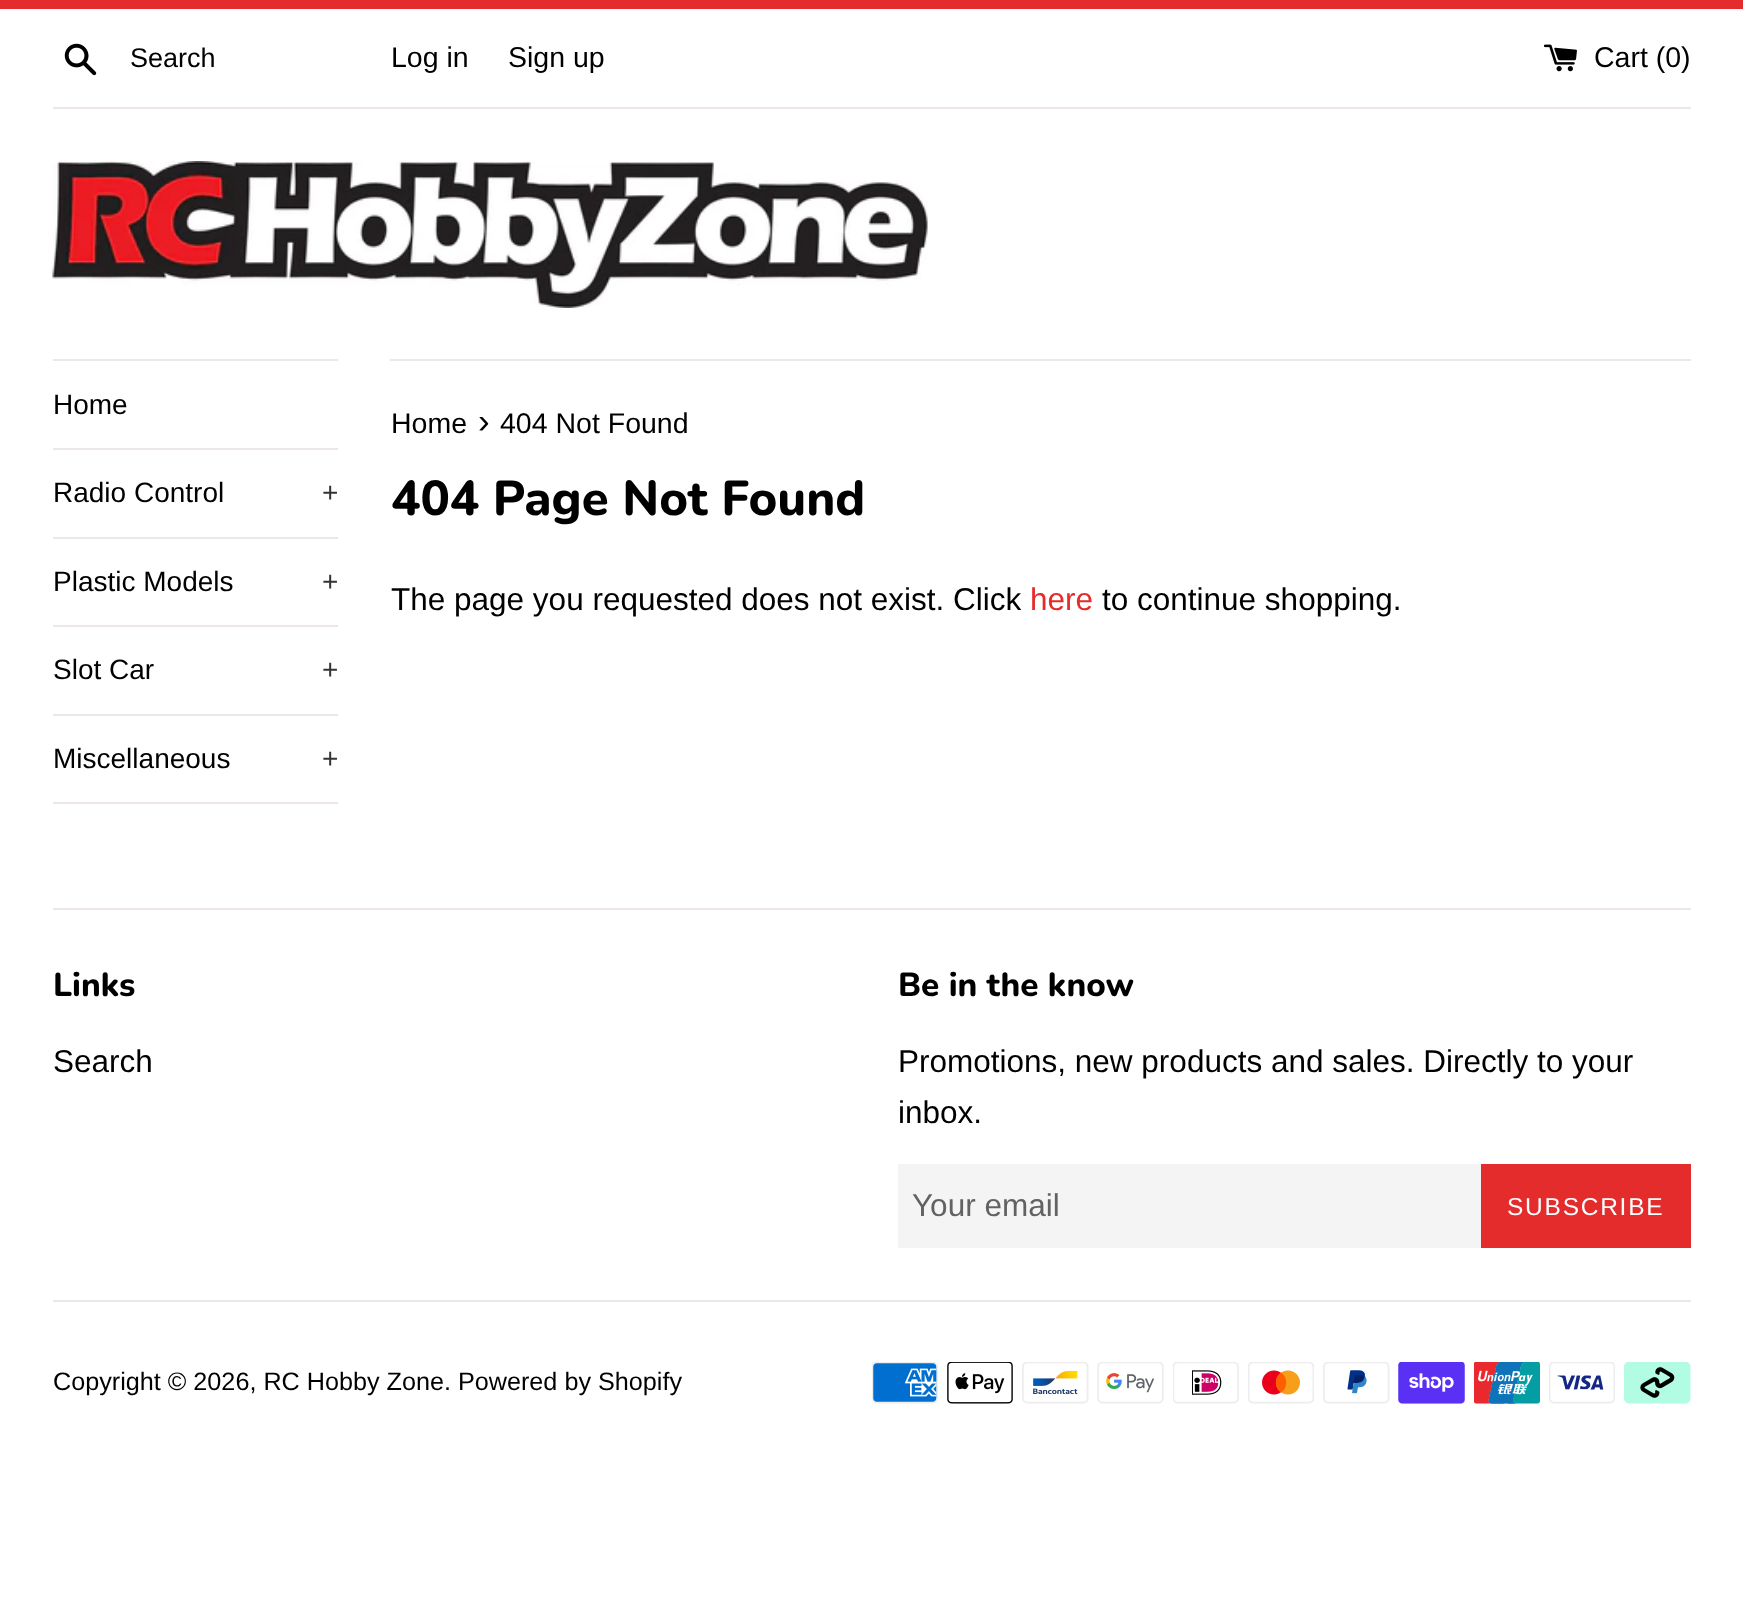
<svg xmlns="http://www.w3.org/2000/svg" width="1743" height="1608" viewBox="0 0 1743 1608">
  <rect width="100%" height="100%" fill="#ffffff"/>
  <rect x="0" y="0" width="1743" height="9" fill="#e32c2b"/>
  <image x="64" y="43" width="33" height="33" href="img1.png"/>
  <text x="130" y="67" font-family="Arimo" font-size="27" fill="#000000">Search</text>
  <text x="391" y="67" font-family="Arimo" font-size="28.5" fill="#000000">Log in</text>
  <text x="508" y="67" font-family="Arimo" font-size="28.5" fill="#000000">Sign up</text>
  <image x="1544" y="44" width="33" height="28" href="img2.png"/>
  <text x="1594" y="67" font-family="Arimo" font-size="28.5" fill="#000000">Cart (0)</text>
  <rect x="53" y="107" width="1638" height="2" fill="#ede8e7"/>
  <image x="52" y="161" width="876" height="147" href="img3.png"/>
  <rect x="53" y="359" width="285" height="2" fill="#ede8e7"/>
  <rect x="53" y="448" width="285" height="2" fill="#ede8e7"/>
  <text x="53" y="414" font-family="Arimo" font-size="28" fill="#000000">Home</text>
  <rect x="53" y="537" width="285" height="2" fill="#ede8e7"/>
  <text x="53" y="502" font-family="Arimo" font-size="28" fill="#000000">Radio Control</text>
  <text x="322" y="502" font-family="Arimo" font-size="28" fill="#333333">+</text>
  <rect x="53" y="625" width="285" height="2" fill="#ede8e7"/>
  <text x="53" y="591" font-family="Arimo" font-size="28" fill="#000000">Plastic Models</text>
  <text x="322" y="591" font-family="Arimo" font-size="28" fill="#333333">+</text>
  <rect x="53" y="714" width="285" height="2" fill="#ede8e7"/>
  <text x="53" y="679" font-family="Arimo" font-size="28" fill="#000000">Slot Car</text>
  <text x="322" y="679" font-family="Arimo" font-size="28" fill="#333333">+</text>
  <rect x="53" y="802" width="285" height="2" fill="#ede8e7"/>
  <text x="53" y="768" font-family="Arimo" font-size="28" fill="#000000">Miscellaneous</text>
  <text x="322" y="768" font-family="Arimo" font-size="28" fill="#333333">+</text>
  <rect x="390" y="359" width="1301" height="2" fill="#ede8e7"/>
  <text x="391" y="433" font-family="Arimo" font-size="28.5" fill="#000000">Home</text>
  <text x="478" y="433" font-family="Arimo" font-size="35" fill="#000000">›</text>
  <text x="500" y="433" font-family="Arimo" font-size="28.5" fill="#000000">404 Not Found</text>
  <text x="391" y="515" font-family="Nunito" font-size="49" font-weight="800" fill="#000000">404 Page Not Found</text>
  <text x="391" y="610" font-family="Arimo" font-size="31.5" fill="#000000">The page you requested does not exist. Click</text>
  <text x="1030" y="610" font-family="Arimo" font-size="31.5" fill="#e32c2b">here</text>
  <text x="1102" y="610" font-family="Arimo" font-size="31.5" fill="#000000">to continue shopping.</text>
  <rect x="53" y="908" width="1638" height="2" fill="#ede8e7"/>
  <text x="53" y="996" font-family="Nunito" font-size="33.25" font-weight="800" fill="#000000">Links</text>
  <text x="53" y="1072" font-family="Arimo" font-size="31.5" fill="#000000">Search</text>
  <text x="898" y="996" font-family="Nunito" font-size="33.25" font-weight="800" fill="#000000">Be in the know</text>
  <text x="898" y="1072" font-family="Arimo" font-size="31.5" fill="#000000">Promotions, new products and sales. Directly to your</text>
  <text x="898" y="1123" font-family="Arimo" font-size="31.5" fill="#000000">inbox.</text>
  <rect x="898" y="1164" width="583" height="84" fill="#f4f4f4"/>
  <text x="912" y="1216" font-family="Arimo" font-size="31.5" fill="#626262">Your email</text>
  <rect x="1481" y="1164" width="210" height="84" fill="#e32c2b"/>
  <text x="1507" y="1215" font-family="Arimo" font-size="24.5" letter-spacing="1.75" fill="#ffffff">SUBSCRIBE</text>
  <rect x="53" y="1300" width="1638" height="2" fill="#ede8e7"/>
  <text x="53" y="1390" font-family="Arimo" font-size="25.2" fill="#000000">Copyright © 2026, RC Hobby Zone. Powered by Shopify</text>
  <image x="872" y="1362" width="66" height="42" href="img4.png"/>
  <image x="947" y="1362" width="66" height="42" href="img5.png"/>
  <image x="1022" y="1362" width="67" height="42" href="img6.png"/>
  <image x="1097" y="1362" width="67" height="42" href="img7.png"/>
  <image x="1173" y="1362" width="66" height="42" href="img8.png"/>
  <image x="1248" y="1362" width="66" height="42" href="img9.png"/>
  <image x="1323" y="1362" width="67" height="42" href="img10.png"/>
  <image x="1398" y="1362" width="67" height="42" href="img11.png"/>
  <image x="1474" y="1362" width="66" height="42" href="img12.png"/>
  <image x="1549" y="1362" width="66" height="42" href="img13.png"/>
  <image x="1624" y="1362" width="67" height="42" href="img14.png"/>
</svg>
